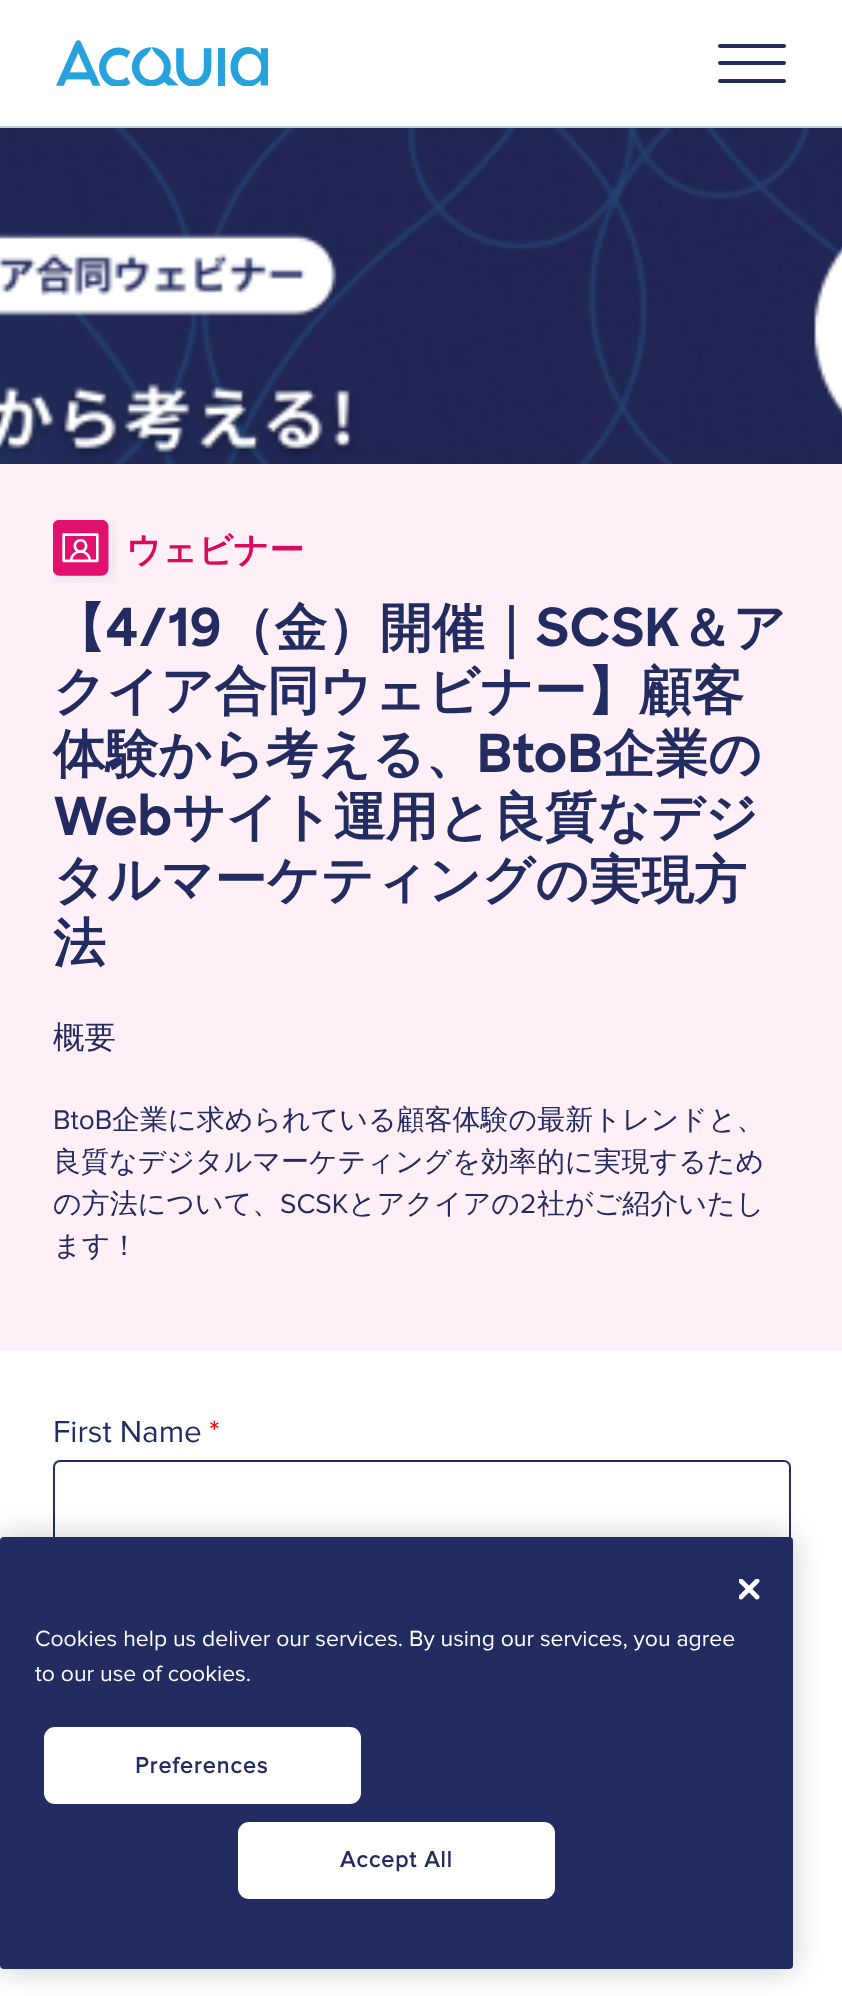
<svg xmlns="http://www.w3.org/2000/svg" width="842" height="1996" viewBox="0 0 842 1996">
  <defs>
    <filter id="blur1" x="-50%" y="-200%" width="200%" height="500%"><feGaussianBlur stdDeviation="16"/></filter>
  </defs>
  <rect width="100%" height="100%" fill="#ffffff"/>
  <rect x="0" y="126" width="842" height="2" fill="#c2ced6"/>
  <image x="56" y="40" width="213" height="46" href="img1.png"/>
  <rect x="718" y="61" width="68" height="4" rx="2" fill="#232c61"/>
  <rect x="718" y="44" width="68" height="4" rx="2" fill="#232c61"/>
  <rect x="718" y="79" width="68" height="4" rx="2" fill="#232c61"/>
  <image x="0" y="128" width="842" height="336" href="img2.png"/>
  <rect x="0" y="464" width="842" height="887" fill="#ffeff6"/>
  <image x="53" y="520" width="63" height="63" href="img3.png"/>
  <text x="126" y="562" font-family="WenQuanYi Zen Hei" font-size="35" font-weight="bold" fill="#d90c5b">ウェビナー</text>
  <text x="53" y="646" font-family="WenQuanYi Zen Hei" font-size="52.5" font-weight="bold" fill="#232c61">【</text>
  <text x="105" y="646" font-family="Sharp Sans" font-size="52.5" font-weight="bold" fill="#232c61">4/19</text>
  <text x="222" y="646" font-family="WenQuanYi Zen Hei" font-size="52.5" font-weight="bold" fill="#232c61">（金）開催｜</text>
  <text x="536" y="646" font-family="Sharp Sans" font-size="52.5" font-weight="bold" fill="#232c61">SCSK</text>
  <text x="680" y="646" font-family="WenQuanYi Zen Hei" font-size="52.5" font-weight="bold" fill="#232c61">＆ア</text>
  <text x="53" y="709" font-family="WenQuanYi Zen Hei" font-size="52.5" font-weight="bold" fill="#232c61">クイア合同ウェビナー】顧客</text>
  <text x="53" y="772" font-family="WenQuanYi Zen Hei" font-size="52.5" font-weight="bold" fill="#232c61">体験から考える、</text>
  <text x="477" y="772" font-family="Sharp Sans" font-size="52.5" font-weight="bold" fill="#232c61">BtoB</text>
  <text x="603" y="772" font-family="WenQuanYi Zen Hei" font-size="52.5" font-weight="bold" fill="#232c61">企業の</text>
  <text x="53" y="835" font-family="Sharp Sans" font-size="52.5" font-weight="bold" fill="#232c61">Web</text>
  <text x="172" y="835" font-family="WenQuanYi Zen Hei" font-size="52.5" font-weight="bold" fill="#232c61">サイト運用と良質なデジ</text>
  <text x="53" y="898" font-family="WenQuanYi Zen Hei" font-size="52.5" font-weight="bold" fill="#232c61">タルマーケティングの実現方</text>
  <text x="53" y="961" font-family="WenQuanYi Zen Hei" font-size="52.5" font-weight="bold" fill="#232c61">法</text>
  <text x="53" y="1048" font-family="WenQuanYi Zen Hei" font-size="31.5" font-weight="500" fill="#232c61">概要</text>
  <text x="53" y="1129" font-family="Proxima Nova" font-size="28" fill="#232c61">BtoB</text>
  <text x="112" y="1129" font-family="WenQuanYi Zen Hei" font-size="28" font-weight="500" fill="#232c61">企業に求められている顧客体験の最新トレンドと、</text>
  <text x="53" y="1171" font-family="WenQuanYi Zen Hei" font-size="28" font-weight="500" fill="#232c61">良質なデジタルマーケティングを効率的に実現するため</text>
  <text x="53" y="1213" font-family="WenQuanYi Zen Hei" font-size="28" font-weight="500" fill="#232c61">の方法について、</text>
  <text x="280" y="1213" font-family="Proxima Nova" font-size="28" fill="#232c61">SCSK</text>
  <text x="348" y="1213" font-family="WenQuanYi Zen Hei" font-size="28" font-weight="500" fill="#232c61">とアクイアの</text>
  <text x="520" y="1213" font-family="Proxima Nova" font-size="28" fill="#232c61">2</text>
  <text x="537" y="1213" font-family="WenQuanYi Zen Hei" font-size="28" font-weight="500" fill="#232c61">社がご紹介いたし</text>
  <text x="53" y="1255" font-family="WenQuanYi Zen Hei" font-size="28" font-weight="500" fill="#232c61">ます！</text>
  <text x="53" y="1442" font-family="Proxima Nova" font-size="31.5" fill="#232c61">First Name</text>
  <text x="209" y="1442" font-family="Proxima Nova" font-size="31.5" fill="#ff0000">*</text>
  <rect x="54" y="1461" width="736" height="85" rx="6" fill="none" stroke="#232c61" stroke-width="2"/>
  <rect x="0" y="1537" width="793" height="432" rx="4" fill="#000000" fill-opacity="0.2" filter="url(#blur1)"/>
  <rect x="0" y="1537" width="793" height="432" rx="4" fill="#232c61"/>
  <image x="739" y="1579" width="21" height="21" href="img4.png"/>
  <text x="35" y="1646" font-family="Proxima Nova" font-size="22.95" fill="#ffffff">Cookies help us deliver our services. By using our services, you agree</text>
  <text x="35" y="1681" font-family="Proxima Nova" font-size="22.95" fill="#ffffff">to our use of cookies.</text>
  <rect x="45" y="1728" width="315" height="75" rx="10" fill="#ffffff" stroke="#ffffff" stroke-width="2"/>
  <text x="135" y="1773" font-family="Proxima Nova" font-size="22.95" font-weight="bold" letter-spacing="1.1" fill="#232c61">Preferences</text>
  <rect x="239" y="1823" width="315" height="75" rx="10" fill="#ffffff" stroke="#ffffff" stroke-width="2"/>
  <text x="340" y="1867" font-family="Proxima Nova" font-size="22.95" font-weight="bold" letter-spacing="1.1" fill="#232c61">Accept All</text>
</svg>
